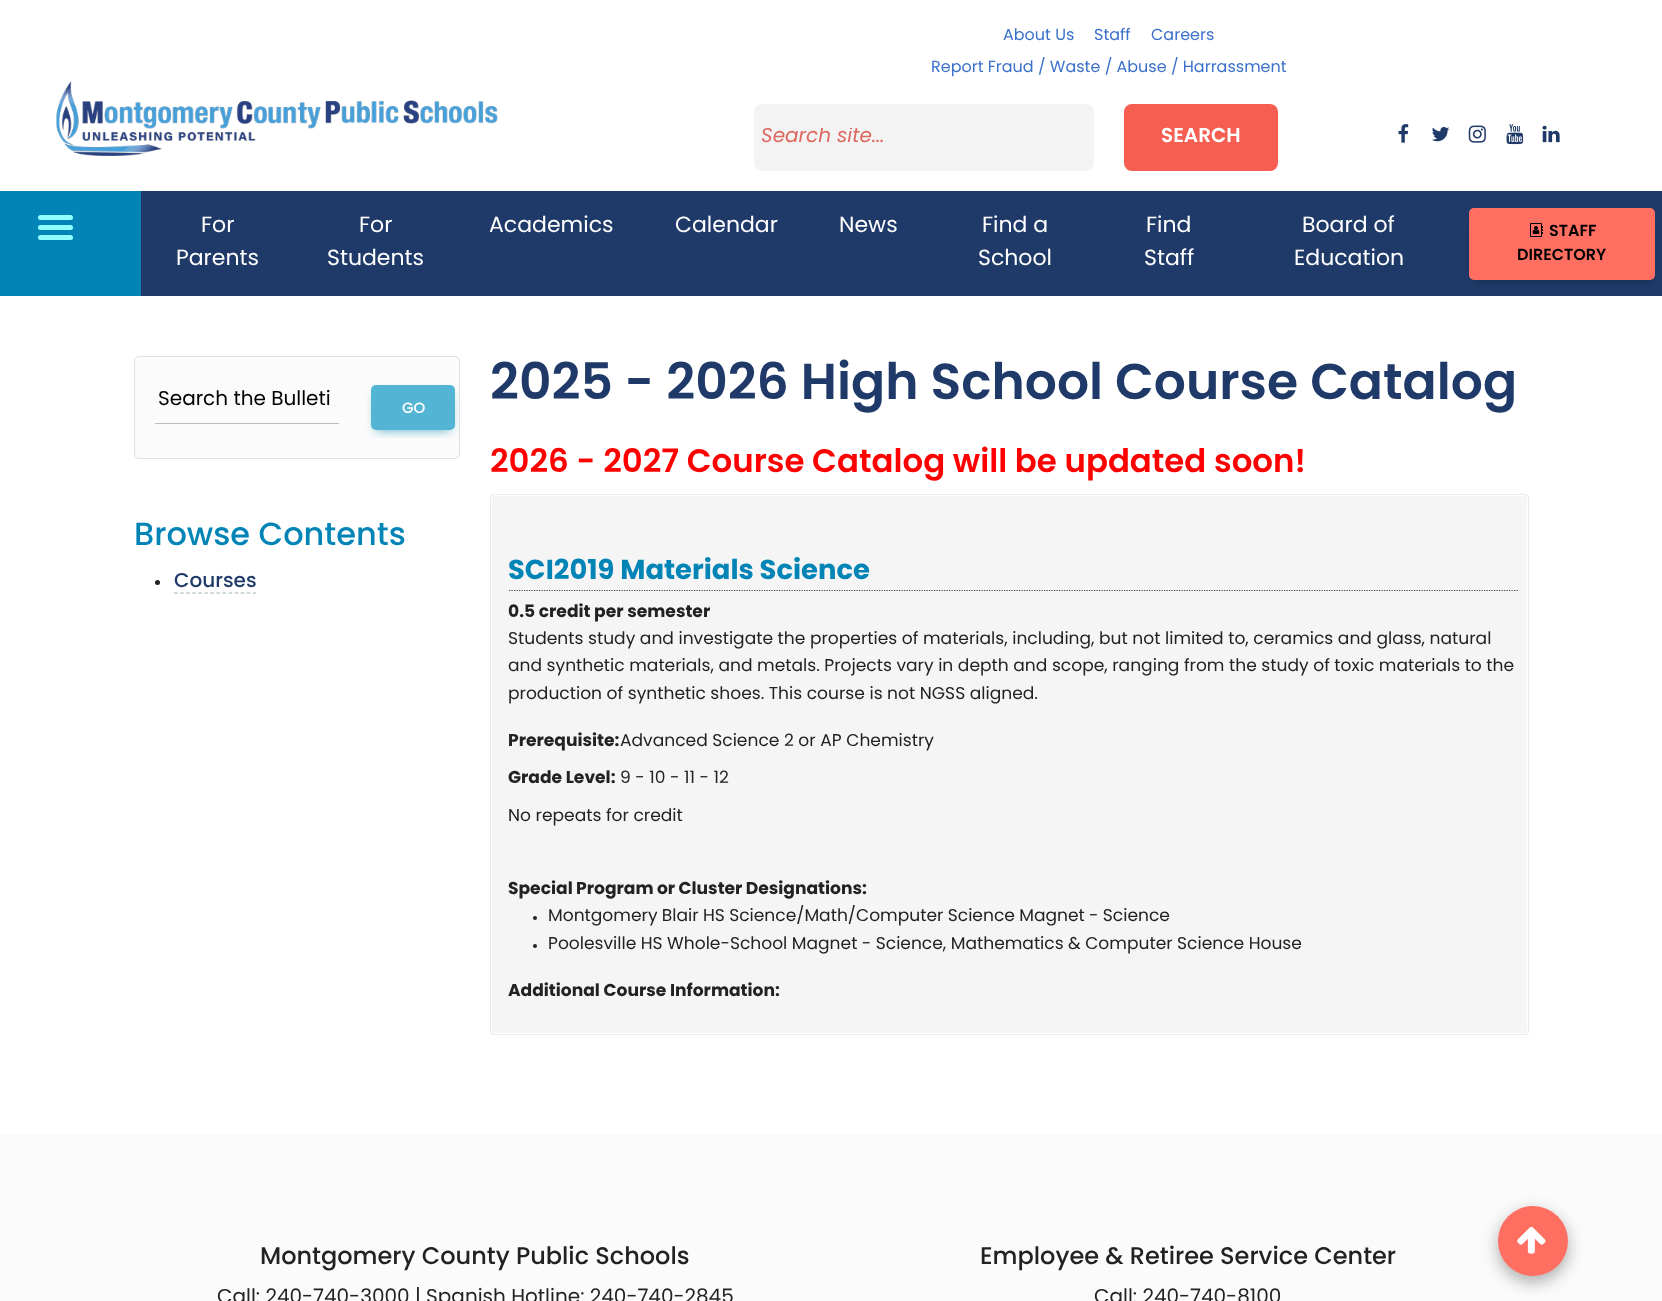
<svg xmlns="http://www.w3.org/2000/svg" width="1662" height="1301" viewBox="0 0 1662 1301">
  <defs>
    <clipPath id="clip1"><rect x="761" y="128" width="320" height="20"/></clipPath>
    <filter id="blur1" x="-50%" y="-200%" width="200%" height="500%"><feGaussianBlur stdDeviation="5.5"/></filter>
    <clipPath id="clip2"><rect x="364" y="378" width="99" height="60" rx="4"/></clipPath>
    <filter id="blur2" x="-50%" y="-200%" width="200%" height="500%"><feGaussianBlur stdDeviation="9.5"/></filter>
    <filter id="blur3" x="-50%" y="-200%" width="200%" height="500%"><feGaussianBlur stdDeviation="7"/></filter>
  </defs>
  <rect width="100%" height="100%" fill="#ffffff"/>
  <image x="56" y="81" width="442" height="75" href="img1.png"/>
  <text x="1003" y="40" font-family="Poppins" font-size="16" fill="#3b71ca">About Us</text>
  <text x="1094" y="40" font-family="Poppins" font-size="16" fill="#3b71ca">Staff</text>
  <text x="1151" y="40" font-family="Poppins" font-size="16" fill="#3b71ca">Careers</text>
  <text x="931" y="72" font-family="Poppins" font-size="16" fill="#3b71ca">Report Fraud / Waste / Abuse / Harrassment</text>
  <rect x="754" y="104" width="340" height="67" rx="8" fill="#f3f3f3"/>
  <g clip-path="url(#clip1)">
    <text x="761" y="142" font-family="Poppins" font-size="20" font-style="italic" fill="#de6860">Search site...</text>
  </g>
  <rect x="1124" y="104" width="154" height="67" rx="8" fill="#f55e50"/>
  <text x="1161" y="142" font-family="Poppins" font-size="20" font-weight="600" fill="#ffffff">SEARCH</text>
  <image x="1398" y="124" width="11" height="19" href="img2.png"/>
  <image x="1432" y="127" width="18" height="15" href="img3.png"/>
  <image x="1468" y="125" width="18" height="18" href="img4.png"/>
  <image x="1506" y="124" width="18" height="21" href="img5.png"/>
  <image x="1542" y="125" width="18" height="18" href="img6.png"/>
  <rect x="0" y="191" width="141" height="105" fill="#0285b6"/>
  <rect x="38" y="225" width="35" height="5" rx="2.5" fill="#91ffff"/>
  <rect x="38" y="215" width="35" height="5" rx="2.5" fill="#91ffff"/>
  <rect x="38" y="235" width="35" height="5" rx="2.5" fill="#91ffff"/>
  <rect x="141" y="191" width="1521" height="105" fill="#1f3a69"/>
  <text x="201" y="232" font-family="Poppins" font-size="22" fill="#ffffff">For</text>
  <text x="176" y="265" font-family="Poppins" font-size="22" fill="#ffffff">Parents</text>
  <text x="359" y="232" font-family="Poppins" font-size="22" fill="#ffffff">For</text>
  <text x="327" y="265" font-family="Poppins" font-size="22" fill="#ffffff">Students</text>
  <text x="489" y="232" font-family="Poppins" font-size="22" fill="#ffffff">Academics</text>
  <text x="675" y="232" font-family="Poppins" font-size="22" fill="#ffffff">Calendar</text>
  <text x="839" y="232" font-family="Poppins" font-size="22" fill="#ffffff">News</text>
  <text x="982" y="232" font-family="Poppins" font-size="22" fill="#ffffff">Find a</text>
  <text x="978" y="265" font-family="Poppins" font-size="22" fill="#ffffff">School</text>
  <text x="1146" y="232" font-family="Poppins" font-size="22" fill="#ffffff">Find</text>
  <text x="1144" y="265" font-family="Poppins" font-size="22" fill="#ffffff">Staff</text>
  <text x="1302" y="232" font-family="Poppins" font-size="22" fill="#ffffff">Board of</text>
  <text x="1294" y="265" font-family="Poppins" font-size="22" fill="#ffffff">Education</text>
  <rect x="1474" y="218" width="176" height="62" fill="#000000" fill-opacity="0.35" filter="url(#blur1)"/>
  <rect x="1469" y="208" width="186" height="72" rx="5" fill="#ff6f61"/>
  <image x="1530" y="223" width="13" height="14" href="img7.png"/>
  <text x="1549" y="236" font-family="Poppins" font-size="16" font-weight="600" fill="#000000">STAFF</text>
  <text x="1517" y="260" font-family="Poppins" font-size="16" font-weight="600" fill="#000000">DIRECTORY</text>
  <rect x="134.5" y="356.5" width="325" height="102" rx="4.5" fill="#fbfbfb" stroke="#e0e0e0"/>
  <rect x="155" y="423" width="184" height="1" fill="#bdbdbd"/>
  <text x="158" y="405" font-family="Poppins" font-size="20" fill="#000000">Search the Bulleti</text>
  <g clip-path="url(#clip2)">
    <rect x="376" y="395" width="74" height="35" fill="#50abc8" filter="url(#blur1)"/>
  </g>
  <rect x="371" y="385" width="84" height="45" rx="5" fill="#54b4d3"/>
  <text x="402" y="413" font-family="Poppins" font-size="15" font-weight="500" fill="#ffffff">GO</text>
  <text x="134" y="545" font-family="Poppins" font-size="32" font-weight="500" fill="#0285b6">Browse Contents</text>
  <circle cx="157.5" cy="582.5" r="2.5" fill="#222222"/>
  <text x="174" y="587" font-family="Poppins" font-size="20" font-weight="500" fill="#1f3a69">Courses</text>
  <path d="M174 593H256" fill="none" stroke="#a0b4b5" stroke-width="1.2" stroke-dasharray="3.75 2.31"/>
  <text x="490" y="399" font-family="Poppins" font-size="50.4" font-weight="600" fill="#1f3a69">2025 - 2026 High School Course Catalog</text>
  <text x="490" y="472" font-family="Poppins" font-size="32.4" font-weight="600" fill="#ff0000">2026 - 2027 Course Catalog will be updated soon!</text>
  <rect x="490" y="494" width="1039" height="541" rx="4" fill="#f5f5f5"/>
  <rect x="491.5" y="495.5" width="1036" height="538" rx="2.5" fill="none" stroke="#ffffff"/>
  <rect x="490.5" y="494.5" width="1038" height="540" rx="3.5" fill="none" stroke="#ecebeb"/>
  <path d="M509 590.5H1519" fill="none" stroke="#444444" stroke-width="1.2" stroke-dasharray="1.25 1.25"/>
  <text x="508" y="579" font-family="Poppins" font-size="27.4" font-weight="bold" fill="#0285b6">SCI2019 Materials Science</text>
  <text x="508" y="617" font-family="Poppins" font-size="17.1" font-weight="bold" fill="#222222">0.5 credit per semester</text>
  <text x="508" y="644" font-family="Poppins" font-size="17.1" fill="#222222">Students study and investigate the properties of materials, including, but not limited to, ceramics and glass, natural</text>
  <text x="508" y="671" font-family="Poppins" font-size="17.1" fill="#222222">and synthetic materials, and metals. Projects vary in depth and scope, ranging from the study of toxic materials to the</text>
  <text x="508" y="699" font-family="Poppins" font-size="17.1" fill="#222222">production of synthetic shoes. This course is not NGSS aligned.</text>
  <text x="508" y="746" font-family="Poppins" font-size="17.1" font-weight="bold" fill="#222222">Prerequisite:</text>
  <text x="620" y="746" font-family="Poppins" font-size="17.1" fill="#222222">Advanced Science 2 or AP Chemistry</text>
  <text x="508" y="783" font-family="Poppins" font-size="17.1" font-weight="bold" fill="#222222">Grade Level:</text>
  <text x="620" y="783" font-family="Poppins" font-size="17.1" fill="#222222">9 - 10 - 11 - 12</text>
  <text x="508" y="821" font-family="Poppins" font-size="17.1" fill="#222222">No repeats for credit</text>
  <text x="508" y="894" word-spacing="-0.25" font-family="Poppins" font-size="17.1" font-weight="bold" fill="#222222">Special Program or Cluster Designations:</text>
  <circle cx="535" cy="918" r="2" fill="#222222"/>
  <text x="548" y="921" word-spacing="-0.25" font-family="Poppins" font-size="17.1" fill="#222222">Montgomery Blair HS Science/Math/Computer Science Magnet - Science</text>
  <circle cx="535" cy="946" r="2" fill="#222222"/>
  <text x="548" y="949" word-spacing="-0.1" font-family="Poppins" font-size="17.1" fill="#222222">Poolesville HS Whole-School Magnet - Science, Mathematics &amp; Computer Science House</text>
  <text x="508" y="996" font-family="Poppins" font-size="17.1" font-weight="bold" fill="#222222">Additional Course Information:</text>
  <rect x="0" y="1134" width="1662" height="167" fill="#fbfbfb"/>
  <text x="260" y="1264" font-family="Poppins" font-size="24" font-weight="500" fill="#222222">Montgomery County Public Schools</text>
  <text x="217" y="1303" font-family="Poppins" font-size="20" fill="#222222">Call: 240-740-3000 | Spanish Hotline: 240-740-2845</text>
  <text x="980" y="1264" font-family="Poppins" font-size="24" font-weight="500" fill="#222222">Employee &amp; Retiree Service Center</text>
  <text x="1094" y="1303" font-family="Poppins" font-size="20" fill="#222222">Call: 240-740-8100</text>
  <rect x="1498" y="1211" width="70" height="70" rx="35" fill="#000000" fill-opacity="0.15" filter="url(#blur2)"/>
  <rect x="1498" y="1213" width="70" height="70" rx="35" fill="#000000" fill-opacity="0.18" filter="url(#blur3)"/>
  <circle cx="1533" cy="1241" r="35" fill="#ff6f61"/>
  <image x="1517" y="1226" width="29" height="28" href="img8.png"/>
</svg>
